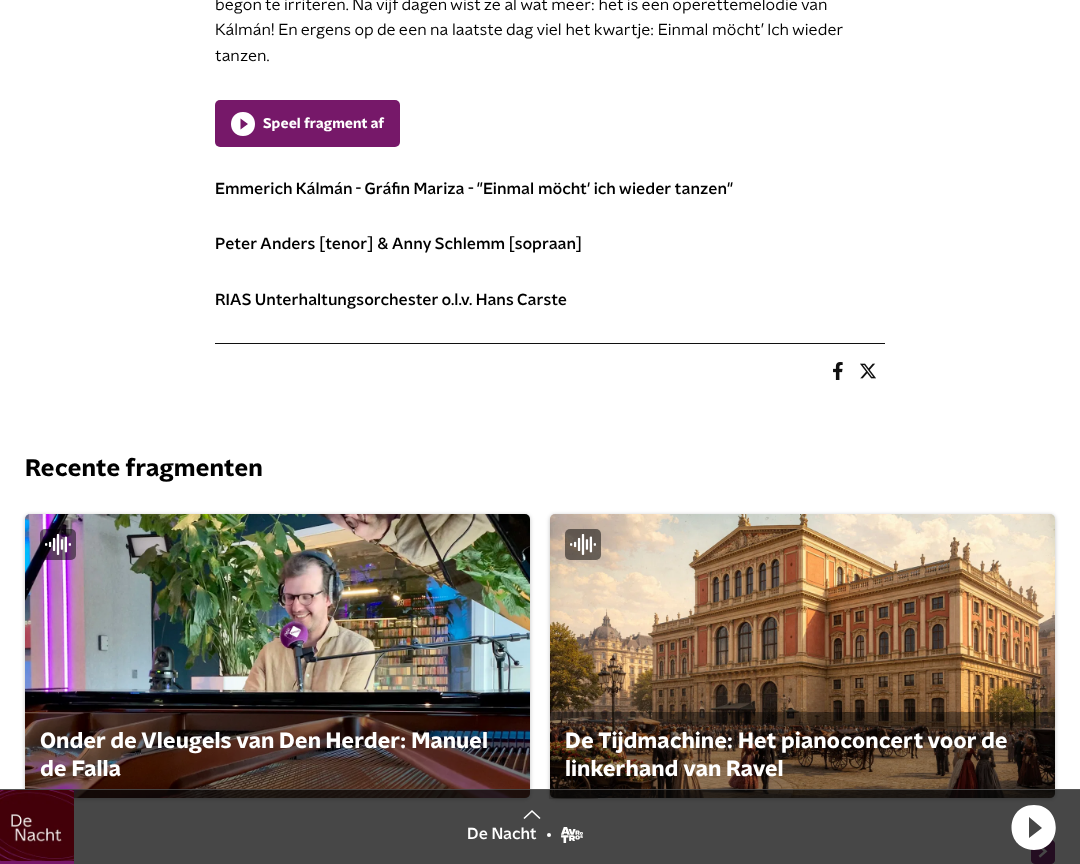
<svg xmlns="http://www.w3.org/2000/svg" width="1080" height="864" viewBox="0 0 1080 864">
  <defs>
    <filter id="blur1" x="-50%" y="-200%" width="200%" height="500%"><feGaussianBlur stdDeviation="2"/></filter>
  </defs>
  <rect width="100%" height="100%" fill="#ffffff"/>
  <text x="215" y="10" font-family="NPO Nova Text" font-size="16" fill="#000000">begon te irriteren. Na vijf dagen wist ze al wat meer: het is een operettemelodie van</text>
  <text x="215" y="35" font-family="NPO Nova Text" font-size="16" fill="#000000">Kálmán! En ergens op de een na laatste dag viel het kwartje: Einmal möcht’ Ich wieder</text>
  <text x="215" y="61" font-family="NPO Nova Text" font-size="16" fill="#000000">tanzen.</text>
  <rect x="215" y="100" width="185" height="47" rx="5" fill="#761869"/>
  <path d="M243 112C227 112 227 136 243 136C259 136 259 112 243 112ZM240.5 129.5V118.5L248 124Z" fill="#ffffff"/>
  <text x="263" y="128" font-family="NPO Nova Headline" font-size="14" font-weight="bold" fill="#ffffff">Speel fragment af</text>
  <text x="215" y="194" font-family="NPO Nova Text" font-size="16" font-weight="500" fill="#000000">Emmerich Kálmán - Gráfin Mariza - "Einmal möcht' ich wieder tanzen"</text>
  <text x="215" y="249" font-family="NPO Nova Text" font-size="16" font-weight="500" fill="#000000">Peter Anders [tenor] &amp; Anny Schlemm [sopraan]</text>
  <text x="215" y="305" font-family="NPO Nova Text" font-size="16" font-weight="500" fill="#000000">RIAS Unterhaltungsorchester o.l.v. Hans Carste</text>
  <rect x="215" y="343" width="670" height="1" fill="#101010"/>
  <image x="833" y="362" width="10" height="18" href="img1.png"/>
  <image x="860" y="363" width="16" height="16" href="img2.png"/>
  <text x="25" y="476" font-family="NPO Nova Headline" font-size="24" font-weight="bold" fill="#000000">Recente fragmenten</text>
  <rect x="25" y="515" width="505" height="284" rx="5" fill="#000000" fill-opacity="0.25" filter="url(#blur1)"/>
  <image x="25" y="514" width="505" height="284" href="img3.png"/>
  <rect x="40" y="529" width="36" height="31" rx="5" fill="#000000" fill-opacity="0.5"/>
  <image x="45" y="534" width="26" height="21" href="img4.png"/>
  <path d="M25 712H530V793C530 796 528 798 525 798H30C27 798 25 796 25 793Z" fill="#000000" fill-opacity="0.4"/>
  <text x="40" y="748" font-family="NPO Nova Headline" font-size="22" font-weight="bold" fill="#ffffff">Onder de Vleugels van Den Herder: Manuel</text>
  <text x="40" y="776" font-family="NPO Nova Headline" font-size="22" font-weight="bold" fill="#ffffff">de Falla</text>
  <rect x="550" y="515" width="505" height="284" rx="5" fill="#000000" fill-opacity="0.25" filter="url(#blur1)"/>
  <image x="549" y="514" width="506" height="285" href="img5.png"/>
  <rect x="565" y="529" width="36" height="31" rx="5" fill="#000000" fill-opacity="0.5"/>
  <image x="570" y="534" width="26" height="21" href="img6.png"/>
  <path d="M550 712H1055V793C1055 796 1053 798 1050 798H555C552 798 550 796 550 793Z" fill="#000000" fill-opacity="0.4"/>
  <text x="565" y="748" font-family="NPO Nova Headline" font-size="22" font-weight="bold" fill="#ffffff">De Tijdmachine: Het pianoconcert voor de</text>
  <text x="565" y="776" font-family="NPO Nova Headline" font-size="22" font-weight="bold" fill="#ffffff">linkerhand van Ravel</text>
  <image x="1031" y="840" width="24" height="24" href="img7.png"/>
  <rect x="0" y="789" width="1080" height="75" fill="#090909" fill-opacity="0.75"/>
  <rect x="0" y="789" width="1080" height="1" fill="#5f5f5f" fill-opacity="0.65"/>
  <image x="0" y="790" width="74" height="71" href="img8.png"/>
  <rect x="0" y="861" width="74" height="3" fill="#761869"/>
  <path d="M540 818.5L532 811L524 818.5" fill="none" stroke="#ffffff" stroke-width="1.6"/>
  <text x="467" y="839" font-family="NPO Nova Text" font-size="16" font-weight="500" fill="#ffffff">De Nacht</text>
  <circle cx="549" cy="835" r="2" fill="#ffffff"/>
  <image x="561" y="827" width="22" height="16" href="img9.png"/>
  <path d="M1034 805C1004 805 1004 850 1034 850C1063 850 1063 805 1034 805ZM1029 838V817L1042 828Z" fill="#ffffff"/>
</svg>
